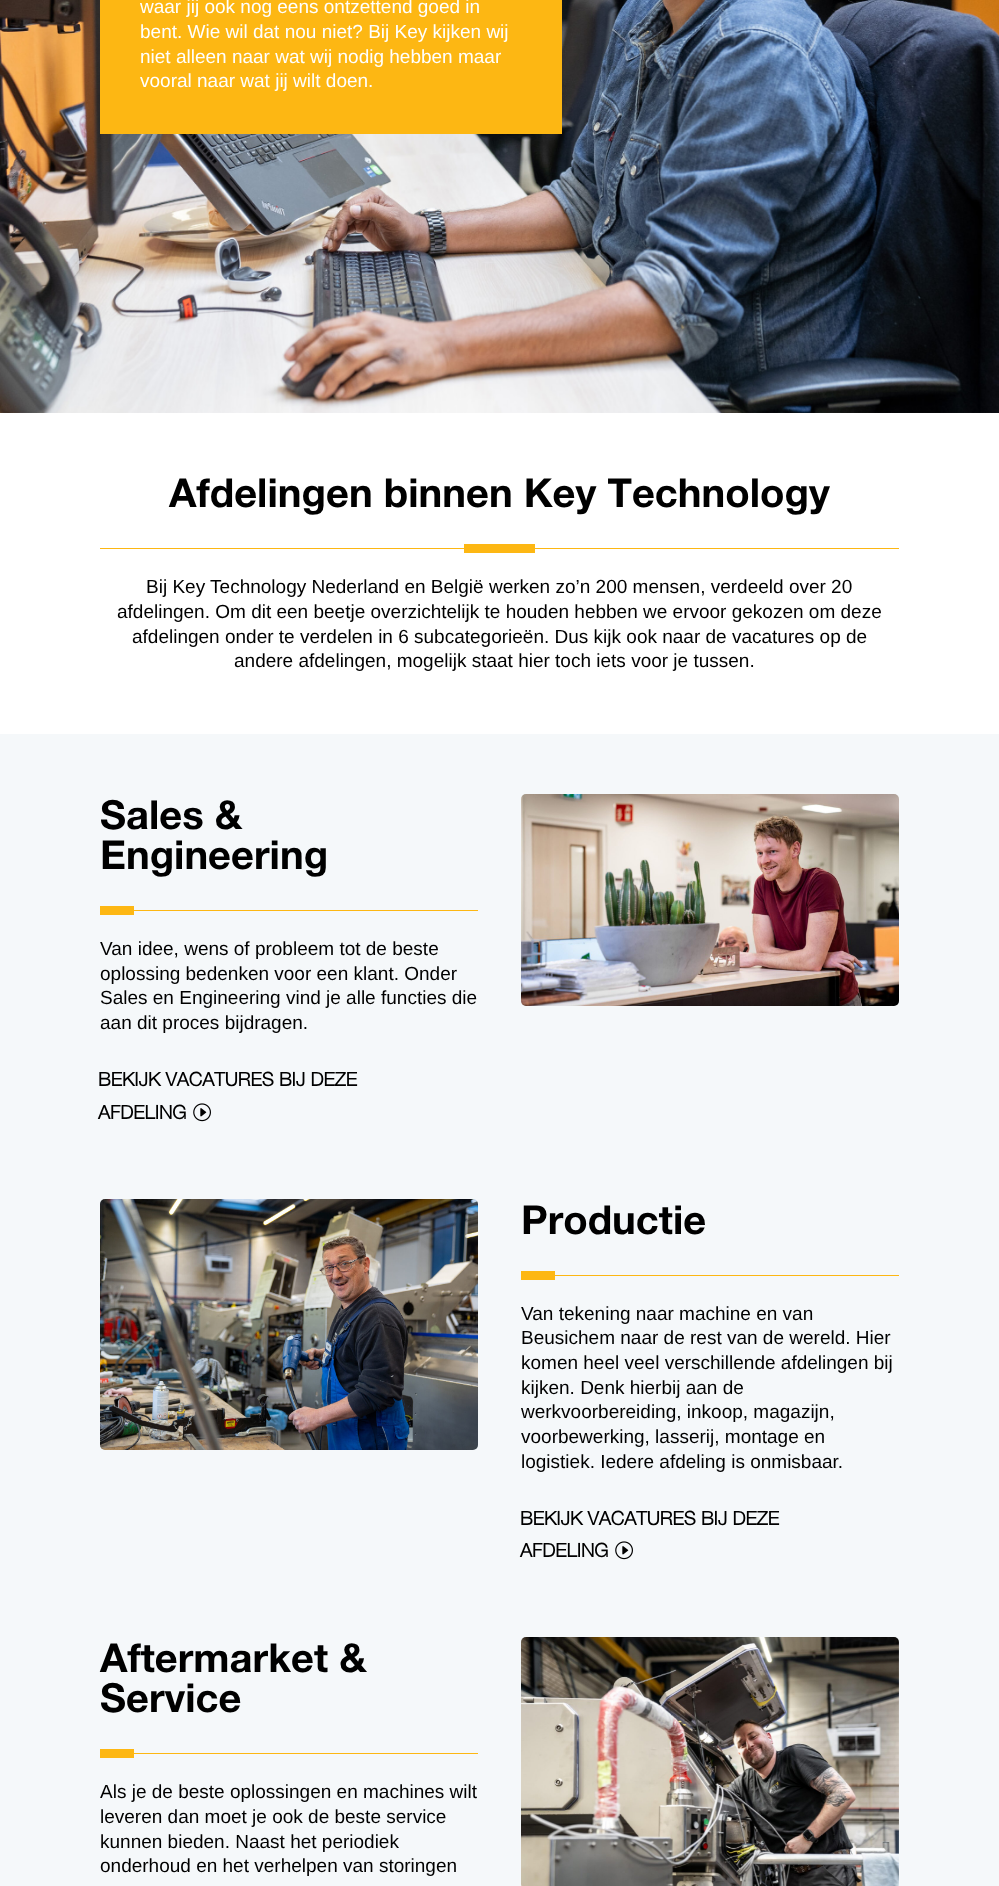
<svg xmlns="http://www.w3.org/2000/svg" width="999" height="1886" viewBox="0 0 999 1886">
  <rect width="100%" height="100%" fill="#ffffff"/>
  <image x="0" y="0" width="999" height="413" href="img1.png"/>
  <rect x="100" y="0" width="462" height="134" fill="#fdb713"/>
  <text x="140" y="13" font-family="Liberation Sans" font-size="19" fill="#ffffff">waar jij ook nog eens ontzettend goed in</text>
  <text x="140" y="38" font-family="Liberation Sans" font-size="19" fill="#ffffff">bent. Wie wil dat nou niet? Bij Key kijken wij</text>
  <text x="140" y="63" font-family="Liberation Sans" font-size="19" fill="#ffffff">niet alleen naar wat wij nodig hebben maar</text>
  <text x="140" y="87" font-family="Liberation Sans" font-size="19" fill="#ffffff">vooral naar wat jij wilt doen.</text>
  <text x="169" y="507" font-family="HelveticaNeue" font-size="40" font-weight="bold" fill="#000000">Afdelingen binnen Key Technology</text>
  <rect x="100" y="548" width="364" height="1" fill="#fdb713"/>
  <rect x="464" y="544" width="71" height="9" fill="#fdb713"/>
  <rect x="535" y="548" width="364" height="1" fill="#fdb713"/>
  <text x="146" y="593" font-family="Liberation Sans" font-size="19" fill="#000000">Bij Key Technology Nederland en België werken zo’n 200 mensen, verdeeld over 20</text>
  <text x="117" y="618" font-family="Liberation Sans" font-size="19" fill="#000000">afdelingen. Om dit een beetje overzichtelijk te houden hebben we ervoor gekozen om deze</text>
  <text x="132" y="643" font-family="Liberation Sans" font-size="19" fill="#000000">afdelingen onder te verdelen in 6 subcategorieën. Dus kijk ook naar de vacatures op de</text>
  <text x="234" y="667" font-family="Liberation Sans" font-size="19" fill="#000000">andere afdelingen, mogelijk staat hier toch iets voor je tussen.</text>
  <rect x="0" y="734" width="999" height="1152" fill="#f5f8fa"/>
  <text x="100" y="829" font-family="HelveticaNeue" font-size="40" font-weight="bold" fill="#000000">Sales &amp;</text>
  <text x="100" y="869" font-family="HelveticaNeue" font-size="40" font-weight="bold" fill="#000000">Engineering</text>
  <rect x="100" y="906" width="34" height="9" fill="#fdb713"/>
  <rect x="134" y="910" width="344" height="1" fill="#fdb713"/>
  <text x="100" y="955" font-family="Liberation Sans" font-size="19" fill="#000000">Van idee, wens of probleem tot de beste</text>
  <text x="100" y="980" font-family="Liberation Sans" font-size="19" fill="#000000">oplossing bedenken voor een klant. Onder</text>
  <text x="100" y="1004" font-family="Liberation Sans" font-size="19" fill="#000000">Sales en Engineering vind je alle functies die</text>
  <text x="100" y="1029" font-family="Liberation Sans" font-size="19" fill="#000000">aan dit proces bijdragen.</text>
  <text x="98" y="1086" font-family="'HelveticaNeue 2'" font-size="19" font-weight="bold" fill="#000000">BEKIJK VACATURES BIJ DEZE</text>
  <text x="98" y="1119" font-family="'HelveticaNeue 2'" font-size="19" font-weight="bold" fill="#000000">AFDELING</text>
  <image x="193" y="1103" width="18" height="19" href="img2.png"/>
  <image x="521" y="794" width="378" height="212" href="img3.png"/>
  <image x="100" y="1199" width="378" height="251" href="img4.png"/>
  <text x="521" y="1234" font-family="HelveticaNeue" font-size="40" font-weight="bold" fill="#000000">Productie</text>
  <rect x="521" y="1271" width="34" height="9" fill="#fdb713"/>
  <rect x="555" y="1275" width="344" height="1" fill="#fdb713"/>
  <text x="521" y="1320" font-family="Liberation Sans" font-size="19" fill="#000000">Van tekening naar machine en van</text>
  <text x="521" y="1344" font-family="Liberation Sans" font-size="19" fill="#000000">Beusichem naar de rest van de wereld. Hier</text>
  <text x="521" y="1369" font-family="Liberation Sans" font-size="19" fill="#000000">komen heel veel verschillende afdelingen bij</text>
  <text x="521" y="1394" font-family="Liberation Sans" font-size="19" fill="#000000">kijken. Denk hierbij aan de</text>
  <text x="521" y="1418" font-family="Liberation Sans" font-size="19" fill="#000000">werkvoorbereiding, inkoop, magazijn,</text>
  <text x="521" y="1443" font-family="Liberation Sans" font-size="19" fill="#000000">voorbewerking, lasserij, montage en</text>
  <text x="521" y="1468" font-family="Liberation Sans" font-size="19" fill="#000000">logistiek. Iedere afdeling is onmisbaar.</text>
  <text x="520" y="1525" font-family="'HelveticaNeue 2'" font-size="19" font-weight="bold" fill="#000000">BEKIJK VACATURES BIJ DEZE</text>
  <text x="520" y="1557" font-family="'HelveticaNeue 2'" font-size="19" font-weight="bold" fill="#000000">AFDELING</text>
  <image x="615" y="1541" width="18" height="19" href="img2.png"/>
  <text x="100" y="1672" font-family="HelveticaNeue" font-size="40" font-weight="bold" fill="#000000">Aftermarket &amp;</text>
  <text x="100" y="1712" font-family="HelveticaNeue" font-size="40" font-weight="bold" fill="#000000">Service</text>
  <rect x="100" y="1749" width="34" height="9" fill="#fdb713"/>
  <rect x="134" y="1753" width="344" height="1" fill="#fdb713"/>
  <text x="100" y="1798" font-family="Liberation Sans" font-size="19" fill="#000000">Als je de beste oplossingen en machines wilt</text>
  <text x="100" y="1823" font-family="Liberation Sans" font-size="19" fill="#000000">leveren dan moet je ook de beste service</text>
  <text x="100" y="1848" font-family="Liberation Sans" font-size="19" fill="#000000">kunnen bieden. Naast het periodiek</text>
  <text x="100" y="1872" font-family="Liberation Sans" font-size="19" fill="#000000">onderhoud en het verhelpen van storingen</text>
  <image x="521" y="1637" width="378" height="249" href="img5.png"/>
</svg>
